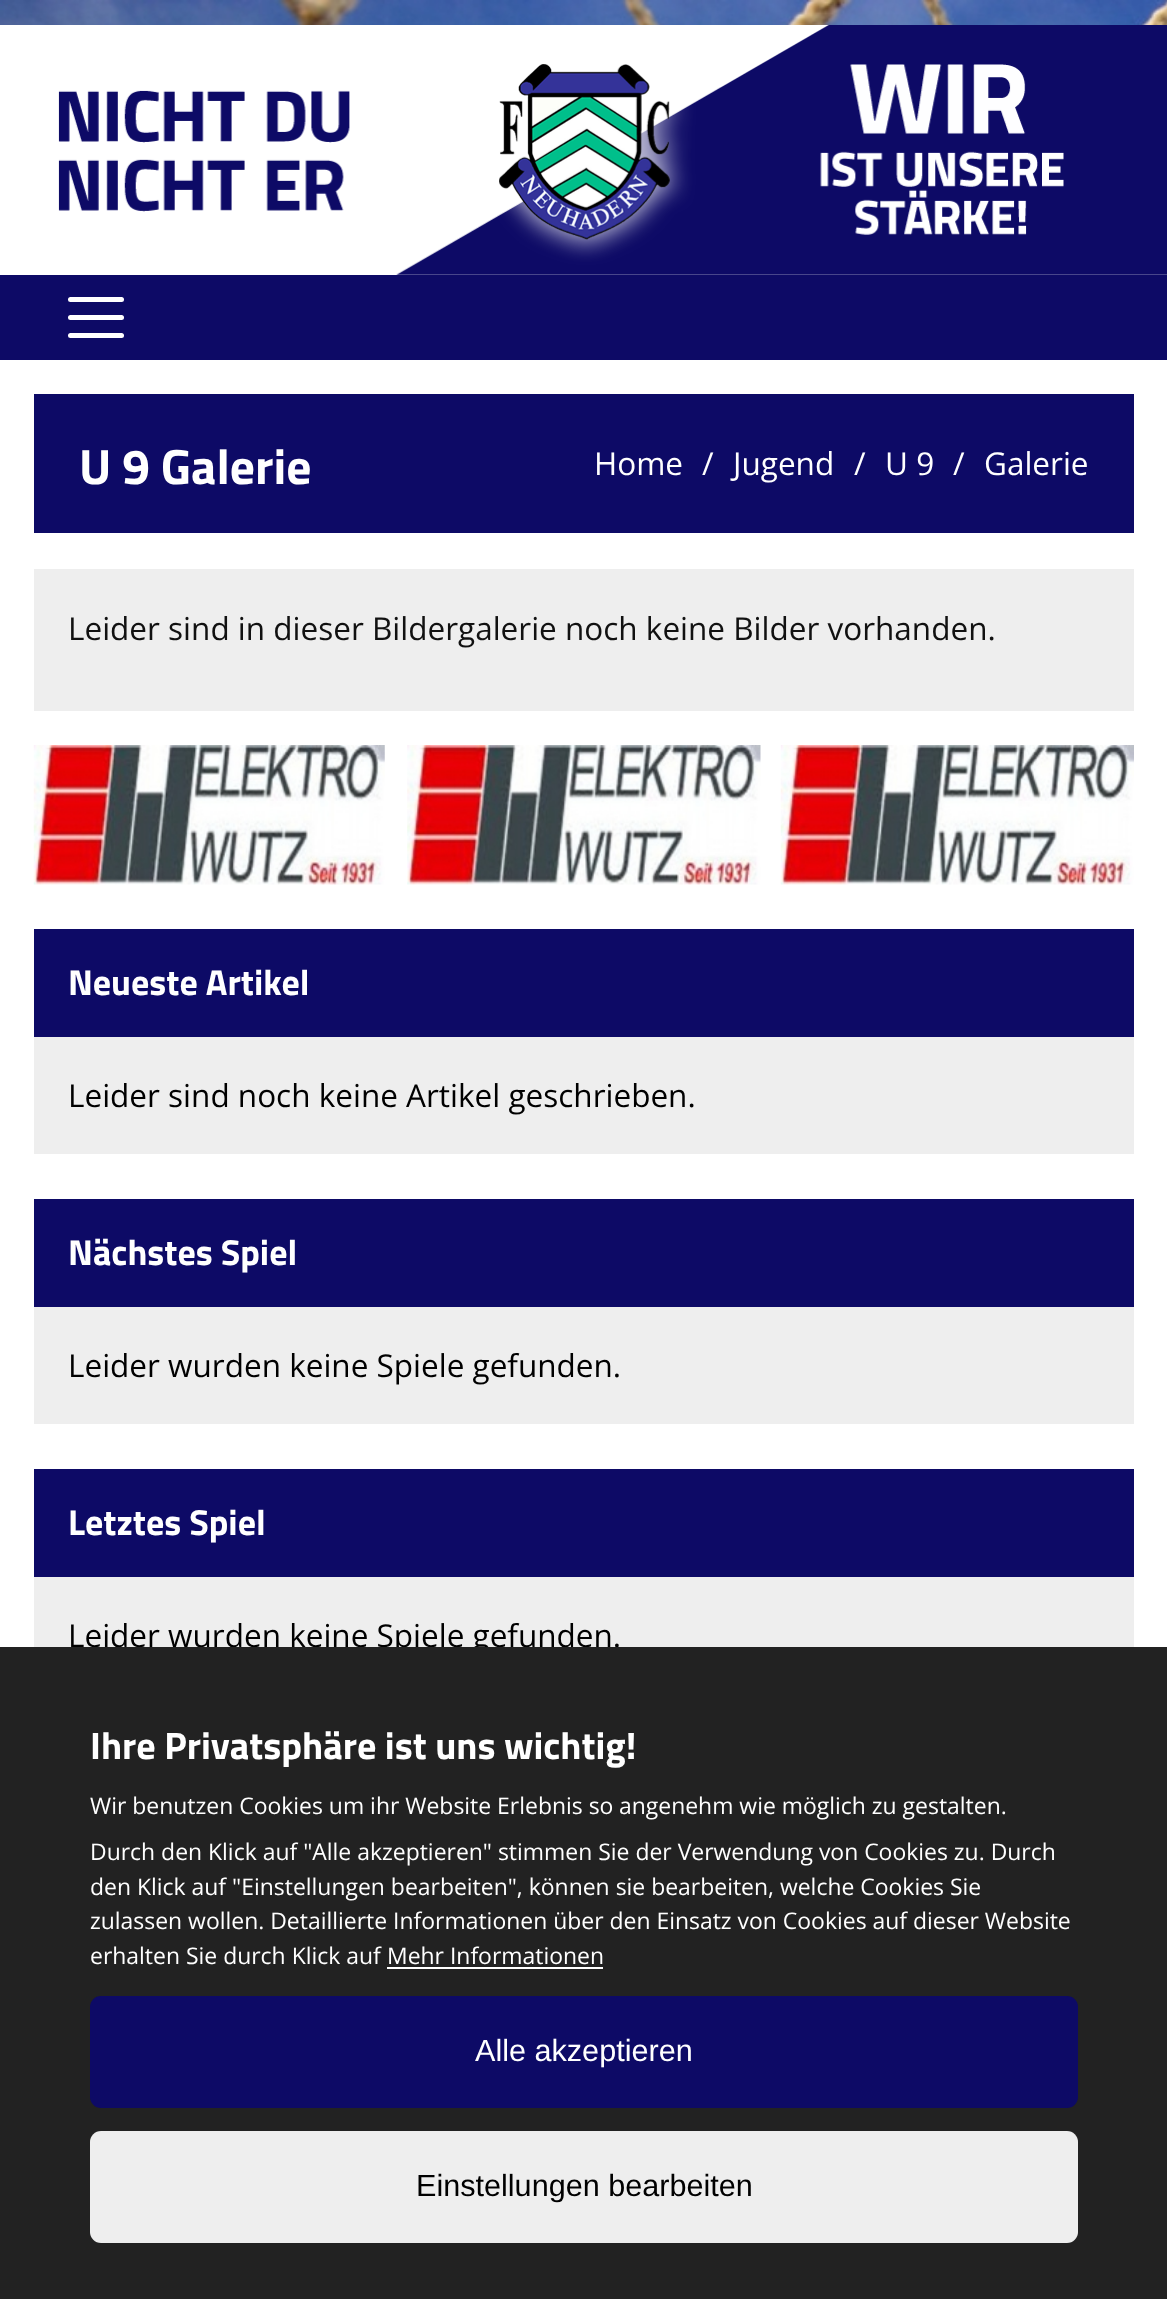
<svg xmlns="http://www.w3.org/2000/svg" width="1167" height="2299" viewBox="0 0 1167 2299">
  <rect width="100%" height="100%" fill="#ffffff"/>
  <image x="0" y="0" width="1167" height="25" href="img1.png"/>
  <image x="58" y="25" width="1109" height="250" href="img2.png"/>
  <rect x="0" y="275" width="1167" height="85" fill="#0d0a66"/>
  <rect x="68" y="297" width="56" height="5" rx="2.5" fill="#ffffff"/>
  <rect x="68" y="315" width="56" height="5" rx="2.5" fill="#ffffff"/>
  <rect x="68" y="333" width="56" height="5" rx="2.5" fill="#ffffff"/>
  <rect x="34" y="394" width="1100" height="139" fill="#0d0a66"/>
  <text x="79" y="484" font-family="Titillium Web" font-size="49.5" font-weight="bold" fill="#ffffff">U 9 Galerie</text>
  <text x="594" y="475" font-family="Open Sans" font-size="31.5" fill="#ffffff">Home</text>
  <text x="702" y="475" font-family="Open Sans" font-size="31.5" fill="#ffffff">/</text>
  <text x="733" y="475" font-family="Open Sans" font-size="31.5" fill="#ffffff">Jugend</text>
  <text x="854" y="475" font-family="Open Sans" font-size="31.5" fill="#ffffff">/</text>
  <text x="885" y="475" font-family="Open Sans" font-size="31.5" fill="#ffffff">U 9</text>
  <text x="953" y="475" font-family="Open Sans" font-size="31.5" fill="#ffffff">/</text>
  <text x="984" y="475" font-family="Open Sans" font-size="31.5" fill="#ffffff">Galerie</text>
  <rect x="34" y="569" width="1100" height="142" fill="#eeeeee"/>
  <text x="68" y="640" font-family="Open Sans" font-size="31.5" fill="#111111">Leider sind in dieser Bildergalerie noch keine Bilder vorhanden.</text>
  <image x="33" y="745" width="352" height="140" href="img3.png"/>
  <image x="407" y="745" width="354" height="140" href="img4.png"/>
  <image x="780" y="745" width="354" height="140" href="img5.png"/>
  <rect x="34" y="1037" width="1100" height="117" fill="#eeeeee"/>
  <rect x="34" y="929" width="1100" height="108" fill="#0d0a66"/>
  <text x="68" y="995" font-family="Titillium Web" font-size="36" font-weight="bold" fill="#ffffff">Neueste Artikel</text>
  <text x="68" y="1107" font-family="Open Sans" font-size="31.5" fill="#000000">Leider sind noch keine Artikel geschrieben.</text>
  <rect x="34" y="1307" width="1100" height="117" fill="#eeeeee"/>
  <rect x="34" y="1199" width="1100" height="108" fill="#0d0a66"/>
  <text x="68" y="1265" font-family="Titillium Web" font-size="36" font-weight="bold" fill="#ffffff">Nächstes Spiel</text>
  <text x="68" y="1377" font-family="Open Sans" font-size="31.5" fill="#000000">Leider wurden keine Spiele gefunden.</text>
  <rect x="34" y="1577" width="1100" height="70" fill="#eeeeee"/>
  <rect x="34" y="1469" width="1100" height="108" fill="#0d0a66"/>
  <text x="68" y="1535" font-family="Titillium Web" font-size="36" font-weight="bold" fill="#ffffff">Letztes Spiel</text>
  <text x="68" y="1647" font-family="Open Sans" font-size="31.5" fill="#000000">Leider wurden keine Spiele gefunden.</text>
  <rect x="0" y="1647" width="1167" height="652" fill="#222222"/>
  <text x="90" y="1759" font-family="Titillium Web" font-size="38.25" font-weight="bold" fill="#ffffff">Ihre Privatsphäre ist uns wichtig!</text>
  <text x="90" y="1814" font-family="Open Sans" font-size="22.95" fill="#ffffff">Wir benutzen Cookies um ihr Website Erlebnis so</text>
  <text x="619" y="1814" font-family="Open Sans" font-size="22.95" fill="#ffffff">angenehm wie möglich zu gestalten.</text>
  <text x="90" y="1860" font-family="Open Sans" font-size="22.95" fill="#ffffff">Durch den Klick auf "Alle akzeptieren" stimmen Sie der Verwendung von Cookies zu. Durch</text>
  <text x="90" y="1895" font-family="Open Sans" font-size="22.95" fill="#ffffff">den Klick auf "Einstellungen bearbeiten", können sie bearbeiten, welche Cookies Sie</text>
  <text x="90" y="1929" font-family="Open Sans" font-size="22.95" fill="#ffffff">zulassen wollen. Detaillierte Informationen über den Einsatz von Cookies auf dieser Website</text>
  <text x="90" y="1964" font-family="Open Sans" font-size="22.95" fill="#ffffff">erhalten Sie durch Klick auf</text>
  <text x="387" y="1964" font-family="Open Sans" font-size="22.95" fill="#ffffff">Mehr Informationen</text>
  <rect x="387" y="1967" width="216" height="2" fill="#ffffff"/>
  <rect x="90" y="1996" width="988" height="112" rx="11" fill="#0d0a66"/>
  <text x="475" y="2061" font-family="Liberation Sans" font-size="30.6" fill="#ffffff">Alle akzeptieren</text>
  <rect x="90" y="2131" width="988" height="112" rx="11" fill="#eeeeee"/>
  <text x="416" y="2196" font-family="Liberation Sans" font-size="30.6" fill="#000000">Einstellungen bearbeiten</text>
</svg>
